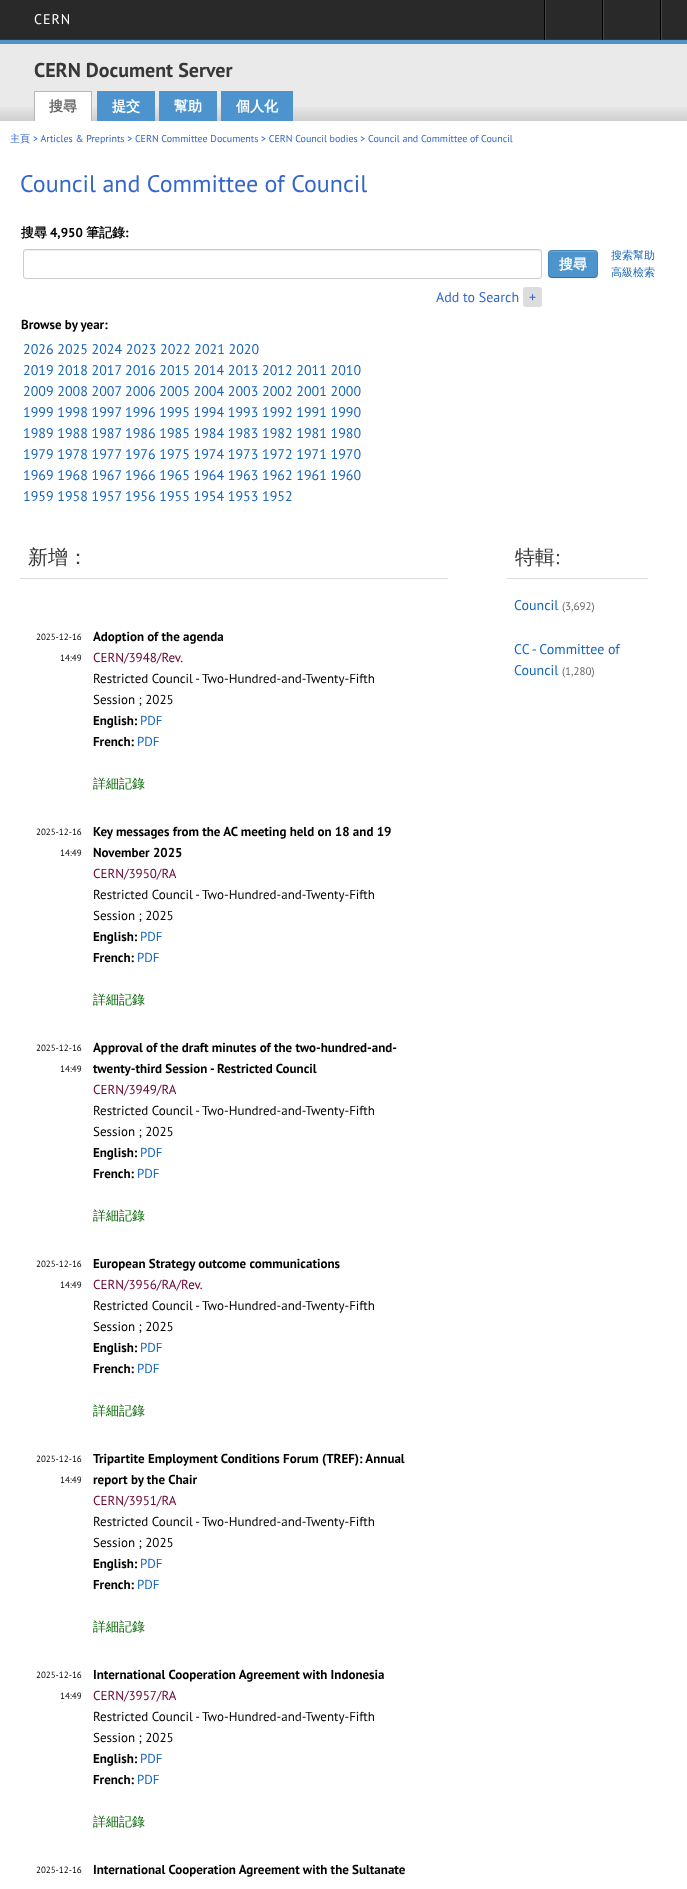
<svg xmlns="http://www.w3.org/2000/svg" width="687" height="1889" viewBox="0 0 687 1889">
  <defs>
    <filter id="blur1" x="-50%" y="-200%" width="200%" height="500%"><feGaussianBlur stdDeviation="1"/></filter>
  </defs>
  <rect width="100%" height="100%" fill="#ffffff"/>
  <rect x="0" y="0" width="687" height="39" fill="#292929"/>
  <rect x="0" y="39" width="687" height="1" fill="#353535"/>
  <text x="34" y="24" font-family="PT Sans" font-size="14" letter-spacing="1" fill="#ffffff">CERN</text>
  <rect x="661" y="0" width="1" height="40" fill="#444444"/>
  <rect x="660" y="0" width="1" height="40" fill="#000000"/>
  <rect x="544" y="0" width="1" height="40" fill="#000000"/>
  <rect x="545" y="0" width="1" height="40" fill="#444444"/>
  <rect x="602" y="0" width="1" height="40" fill="#000000"/>
  <rect x="603" y="0" width="1" height="40" fill="#444444"/>
  <rect x="0" y="44" width="687" height="77" fill="#eaeaea"/>
  <image x="0" y="107" width="687" height="14" href="img1.png"/>
  <rect x="0" y="40" width="687" height="4" fill="#4d94cc"/>
  <text x="34" y="77" font-family="PT Sans" font-size="20" font-weight="bold" fill="#383838">CERN Document Server</text>
  <rect x="35" y="92" width="56" height="29" fill="#ffffff"/>
  <rect x="34" y="91" width="58" height="1" fill="#b8b8b8"/>
  <rect x="91" y="91" width="1" height="30" fill="#b8b8b8"/>
  <rect x="34" y="91" width="1" height="30" fill="#b8b8b8"/>
  <text x="49" y="111" font-family="WenQuanYi Zen Hei" font-size="14" font-weight="bold" fill="#666666">搜尋</text>
  <rect x="97" y="91" width="58" height="30" fill="#4d94ce"/>
  <text x="112" y="111" font-family="WenQuanYi Zen Hei" font-size="14" font-weight="bold" fill="#ffffff">提交</text>
  <rect x="159" y="91" width="58" height="30" fill="#4d94ce"/>
  <text x="174" y="111" font-family="WenQuanYi Zen Hei" font-size="14" font-weight="bold" fill="#ffffff">幫助</text>
  <rect x="221" y="91" width="72" height="30" fill="#4d94ce"/>
  <text x="236" y="111" font-family="WenQuanYi Zen Hei" font-size="14" font-weight="bold" fill="#ffffff">個人化</text>
  <text x="10" y="142" font-family="WenQuanYi Zen Hei" font-size="10" font-weight="500" fill="#3366cc">主頁</text>
  <text x="33" y="142" font-family="PT Sans" font-size="10" fill="#3366cc">&gt; Articles &amp; Preprints &gt; CERN Committee Documents &gt; CERN Council bodies &gt; Council and Committee of Council</text>
  <text x="20" y="192" font-family="PT Sans" font-size="24" fill="#3366cc">Council and Committee of Council</text>
  <text x="21" y="237" font-family="WenQuanYi Zen Hei" font-size="13" font-weight="bold" fill="#000000">搜尋</text>
  <text x="50" y="237" font-family="PT Sans" font-size="13" font-weight="bold" fill="#000000">4,950</text>
  <text x="86" y="237" font-family="WenQuanYi Zen Hei" font-size="13" font-weight="bold" fill="#000000">筆記錄</text>
  <text x="125" y="237" font-family="PT Sans" font-size="13" font-weight="bold" fill="#000000">:</text>
  <path d="M26 251H539C540 251 541 252 541 253C541 252 541 250 539 250H26L24 251V253C24 252 25 251 26 251Z" fill="#ececec"/>
  <rect x="23.5" y="249.5" width="518" height="29" rx="2.5" fill="none" stroke="#cccccc"/>
  <rect x="548" y="251" width="50" height="28" rx="4" fill="#000000" fill-opacity="0.05" filter="url(#blur1)"/>
  <rect x="548" y="250" width="50" height="28" rx="4" fill="#4d94cc"/>
  <path d="M552 252H594C596 252 597 253 597 255C597 249 591 251 587 251H559C555 251 549 249 549 255C549 253 550 252 552 252Z" fill="#71a9d6"/>
  <path d="M596.5 276.5C596 277 595 277.5 594 277.5H552C551 277.5 550 277 549.5 276.5" fill="none" stroke="#000000" stroke-opacity="0.25"/>
  <path d="M549.5 276.5C547.5 274 548.5 266.5 548.5 264C548.5 251 546 250.5 559 250.5H587C600 250.5 597.5 251 597.5 264C597.5 266.5 598.5 274 596.5 276.5" fill="none" stroke="#000000" stroke-opacity="0.1"/>
  <text x="559" y="269" font-family="WenQuanYi Zen Hei" font-size="14" font-weight="bold" fill="#ffffff">搜尋</text>
  <text x="611" y="259" font-family="WenQuanYi Zen Hei" font-size="11" font-weight="500" fill="#1565ba">搜索幫助</text>
  <text x="611" y="276" font-family="WenQuanYi Zen Hei" font-size="11" font-weight="500" fill="#1565ba">高級檢索</text>
  <text x="436" y="302" font-family="PT Sans" font-size="14" fill="#3366cc">Add to Search</text>
  <rect x="523" y="287" width="19" height="20" rx="3" fill="#dddddd"/>
  <text x="529" y="302" font-family="PT Sans" font-size="14" fill="#3366cc">+</text>
  <text x="21" y="329" font-family="PT Sans" font-size="13" font-weight="bold" fill="#000000">Browse by year:</text>
  <text x="23" y="354" font-family="PT Sans" font-size="14" fill="#1565ba">2026 2025 2024 2023 2022 2021 2020</text>
  <text x="23" y="375" font-family="PT Sans" font-size="14" fill="#1565ba">2019 2018 2017</text>
  <text x="125" y="375" font-family="PT Sans" font-size="14" fill="#1565ba">2016 2015 2014 2013 2012 2011 2010</text>
  <text x="23" y="396" font-family="PT Sans" font-size="14" fill="#1565ba">2009 2008 2007</text>
  <text x="125" y="396" font-family="PT Sans" font-size="14" fill="#1565ba">2006 2005 2004 2003 2002 2001 2000</text>
  <text x="23" y="417" font-family="PT Sans" font-size="14" fill="#1565ba">1999 1998 1997</text>
  <text x="125" y="417" font-family="PT Sans" font-size="14" fill="#1565ba">1996 1995 1994 1993 1992 1991 1990</text>
  <text x="23" y="438" font-family="PT Sans" font-size="14" fill="#1565ba">1989 1988 1987</text>
  <text x="125" y="438" font-family="PT Sans" font-size="14" fill="#1565ba">1986 1985 1984 1983 1982 1981 1980</text>
  <text x="23" y="459" font-family="PT Sans" font-size="14" fill="#1565ba">1979 1978 1977</text>
  <text x="125" y="459" font-family="PT Sans" font-size="14" fill="#1565ba">1976 1975 1974 1973 1972 1971 1970</text>
  <text x="23" y="480" font-family="PT Sans" font-size="14" fill="#1565ba">1969 1968 1967</text>
  <text x="125" y="480" font-family="PT Sans" font-size="14" fill="#1565ba">1966 1965 1964 1963 1962 1961 1960</text>
  <text x="23" y="501" font-family="PT Sans" font-size="14" fill="#1565ba">1959 1958 1957</text>
  <text x="125" y="501" font-family="PT Sans" font-size="14" fill="#1565ba">1956 1955 1954 1953 1952</text>
  <rect x="20" y="578" width="428" height="1" fill="#dddddd"/>
  <text x="28" y="564" font-family="WenQuanYi Zen Hei" font-size="20" font-weight="500" fill="#383838">新增：</text>
  <text x="36" y="640" font-family="PT Sans" font-size="9" fill="#000000">2025-12-16</text>
  <text x="60" y="661" font-family="PT Sans" font-size="9" fill="#000000">14:49</text>
  <text x="93" y="641" font-family="PT Sans" font-size="13" font-weight="bold" fill="#000000">Adoption of the agenda</text>
  <text x="93" y="662" font-family="PT Sans" font-size="13" fill="#660033">CERN/3948/Rev.</text>
  <text x="93" y="683" font-family="PT Sans" font-size="13" fill="#000000">Restricted Council - Two-Hundred-and-Twenty-Fifth</text>
  <text x="93" y="704" font-family="PT Sans" font-size="13" fill="#000000">Session ; 2025</text>
  <text x="93" y="725" font-family="PT Sans" font-size="13" font-weight="bold" fill="#000000">English:</text>
  <text x="140" y="725" font-family="PT Sans" font-size="13" fill="#1565ba">PDF</text>
  <text x="93" y="746" font-family="PT Sans" font-size="13" font-weight="bold" fill="#000000">French:</text>
  <text x="137" y="746" font-family="PT Sans" font-size="13" fill="#1565ba">PDF</text>
  <text x="93" y="788" font-family="WenQuanYi Zen Hei" font-size="13" font-weight="500" fill="#006600">詳細記錄</text>
  <text x="36" y="835" font-family="PT Sans" font-size="9" fill="#000000">2025-12-16</text>
  <text x="60" y="856" font-family="PT Sans" font-size="9" fill="#000000">14:49</text>
  <text x="93" y="836" font-family="PT Sans" font-size="13" font-weight="bold" fill="#000000">Key messages from the AC meeting held on 18 and 19</text>
  <text x="93" y="857" font-family="PT Sans" font-size="13" font-weight="bold" fill="#000000">November 2025</text>
  <text x="93" y="878" font-family="PT Sans" font-size="13" fill="#660033">CERN/3950/RA</text>
  <text x="93" y="899" font-family="PT Sans" font-size="13" fill="#000000">Restricted Council - Two-Hundred-and-Twenty-Fifth</text>
  <text x="93" y="920" font-family="PT Sans" font-size="13" fill="#000000">Session ; 2025</text>
  <text x="93" y="941" font-family="PT Sans" font-size="13" font-weight="bold" fill="#000000">English:</text>
  <text x="140" y="941" font-family="PT Sans" font-size="13" fill="#1565ba">PDF</text>
  <text x="93" y="962" font-family="PT Sans" font-size="13" font-weight="bold" fill="#000000">French:</text>
  <text x="137" y="962" font-family="PT Sans" font-size="13" fill="#1565ba">PDF</text>
  <text x="93" y="1004" font-family="WenQuanYi Zen Hei" font-size="13" font-weight="500" fill="#006600">詳細記錄</text>
  <text x="36" y="1051" font-family="PT Sans" font-size="9" fill="#000000">2025-12-16</text>
  <text x="60" y="1072" font-family="PT Sans" font-size="9" fill="#000000">14:49</text>
  <text x="93" y="1052" font-family="PT Sans" font-size="13" font-weight="bold" fill="#000000">Approval of the draft minutes of the two-hundred-and-</text>
  <text x="93" y="1073" font-family="PT Sans" font-size="13" font-weight="bold" fill="#000000">twenty-third Session - Restricted Council</text>
  <text x="93" y="1094" font-family="PT Sans" font-size="13" fill="#660033">CERN/3949/RA</text>
  <text x="93" y="1115" font-family="PT Sans" font-size="13" fill="#000000">Restricted Council - Two-Hundred-and-Twenty-Fifth</text>
  <text x="93" y="1136" font-family="PT Sans" font-size="13" fill="#000000">Session ; 2025</text>
  <text x="93" y="1157" font-family="PT Sans" font-size="13" font-weight="bold" fill="#000000">English:</text>
  <text x="140" y="1157" font-family="PT Sans" font-size="13" fill="#1565ba">PDF</text>
  <text x="93" y="1178" font-family="PT Sans" font-size="13" font-weight="bold" fill="#000000">French:</text>
  <text x="137" y="1178" font-family="PT Sans" font-size="13" fill="#1565ba">PDF</text>
  <text x="93" y="1220" font-family="WenQuanYi Zen Hei" font-size="13" font-weight="500" fill="#006600">詳細記錄</text>
  <text x="36" y="1267" font-family="PT Sans" font-size="9" fill="#000000">2025-12-16</text>
  <text x="60" y="1288" font-family="PT Sans" font-size="9" fill="#000000">14:49</text>
  <text x="93" y="1268" font-family="PT Sans" font-size="13" font-weight="bold" fill="#000000">European Strategy outcome communications</text>
  <text x="93" y="1289" font-family="PT Sans" font-size="13" fill="#660033">CERN/3956/RA/Rev.</text>
  <text x="93" y="1310" font-family="PT Sans" font-size="13" fill="#000000">Restricted Council - Two-Hundred-and-Twenty-Fifth</text>
  <text x="93" y="1331" font-family="PT Sans" font-size="13" fill="#000000">Session ; 2025</text>
  <text x="93" y="1352" font-family="PT Sans" font-size="13" font-weight="bold" fill="#000000">English:</text>
  <text x="140" y="1352" font-family="PT Sans" font-size="13" fill="#1565ba">PDF</text>
  <text x="93" y="1373" font-family="PT Sans" font-size="13" font-weight="bold" fill="#000000">French:</text>
  <text x="137" y="1373" font-family="PT Sans" font-size="13" fill="#1565ba">PDF</text>
  <text x="93" y="1415" font-family="WenQuanYi Zen Hei" font-size="13" font-weight="500" fill="#006600">詳細記錄</text>
  <text x="36" y="1462" font-family="PT Sans" font-size="9" fill="#000000">2025-12-16</text>
  <text x="60" y="1483" font-family="PT Sans" font-size="9" fill="#000000">14:49</text>
  <text x="93" y="1463" font-family="PT Sans" font-size="13" font-weight="bold" fill="#000000">Tripartite Employment Conditions Forum (TREF): Annual</text>
  <text x="93" y="1484" font-family="PT Sans" font-size="13" font-weight="bold" fill="#000000">report by the Chair</text>
  <text x="93" y="1505" font-family="PT Sans" font-size="13" fill="#660033">CERN/3951/RA</text>
  <text x="93" y="1526" font-family="PT Sans" font-size="13" fill="#000000">Restricted Council - Two-Hundred-and-Twenty-Fifth</text>
  <text x="93" y="1547" font-family="PT Sans" font-size="13" fill="#000000">Session ; 2025</text>
  <text x="93" y="1568" font-family="PT Sans" font-size="13" font-weight="bold" fill="#000000">English:</text>
  <text x="140" y="1568" font-family="PT Sans" font-size="13" fill="#1565ba">PDF</text>
  <text x="93" y="1589" font-family="PT Sans" font-size="13" font-weight="bold" fill="#000000">French:</text>
  <text x="137" y="1589" font-family="PT Sans" font-size="13" fill="#1565ba">PDF</text>
  <text x="93" y="1631" font-family="WenQuanYi Zen Hei" font-size="13" font-weight="500" fill="#006600">詳細記錄</text>
  <text x="36" y="1678" font-family="PT Sans" font-size="9" fill="#000000">2025-12-16</text>
  <text x="60" y="1699" font-family="PT Sans" font-size="9" fill="#000000">14:49</text>
  <text x="93" y="1679" font-family="PT Sans" font-size="13" font-weight="bold" fill="#000000">International Cooperation Agreement with Indonesia</text>
  <text x="93" y="1700" font-family="PT Sans" font-size="13" fill="#660033">CERN/3957/RA</text>
  <text x="93" y="1721" font-family="PT Sans" font-size="13" fill="#000000">Restricted Council - Two-Hundred-and-Twenty-Fifth</text>
  <text x="93" y="1742" font-family="PT Sans" font-size="13" fill="#000000">Session ; 2025</text>
  <text x="93" y="1763" font-family="PT Sans" font-size="13" font-weight="bold" fill="#000000">English:</text>
  <text x="140" y="1763" font-family="PT Sans" font-size="13" fill="#1565ba">PDF</text>
  <text x="93" y="1784" font-family="PT Sans" font-size="13" font-weight="bold" fill="#000000">French:</text>
  <text x="137" y="1784" font-family="PT Sans" font-size="13" fill="#1565ba">PDF</text>
  <text x="93" y="1826" font-family="WenQuanYi Zen Hei" font-size="13" font-weight="500" fill="#006600">詳細記錄</text>
  <text x="36" y="1873" font-family="PT Sans" font-size="9" fill="#000000">2025-12-16</text>
  <text x="93" y="1874" font-family="PT Sans" font-size="13" font-weight="bold" fill="#000000">International Cooperation Agreement with the Sultanate</text>
  <rect x="507" y="578" width="141" height="1" fill="#dddddd"/>
  <text x="515" y="564" font-family="WenQuanYi Zen Hei" font-size="20" font-weight="500" fill="#383838">特輯</text>
  <text x="555" y="564" font-family="PT Sans" font-size="20" fill="#383838">:</text>
  <text x="514" y="610" font-family="PT Sans" font-size="14" fill="#1565ba">Council</text>
  <text x="562" y="610" font-family="PT Sans" font-size="11" fill="#666666">(3,692)</text>
  <text x="514" y="654" font-family="PT Sans" font-size="14" fill="#1565ba">CC - Committee of</text>
  <text x="514" y="675" font-family="PT Sans" font-size="14" fill="#1565ba">Council</text>
  <text x="562" y="675" font-family="PT Sans" font-size="11" fill="#666666">(1,280)</text>
</svg>
